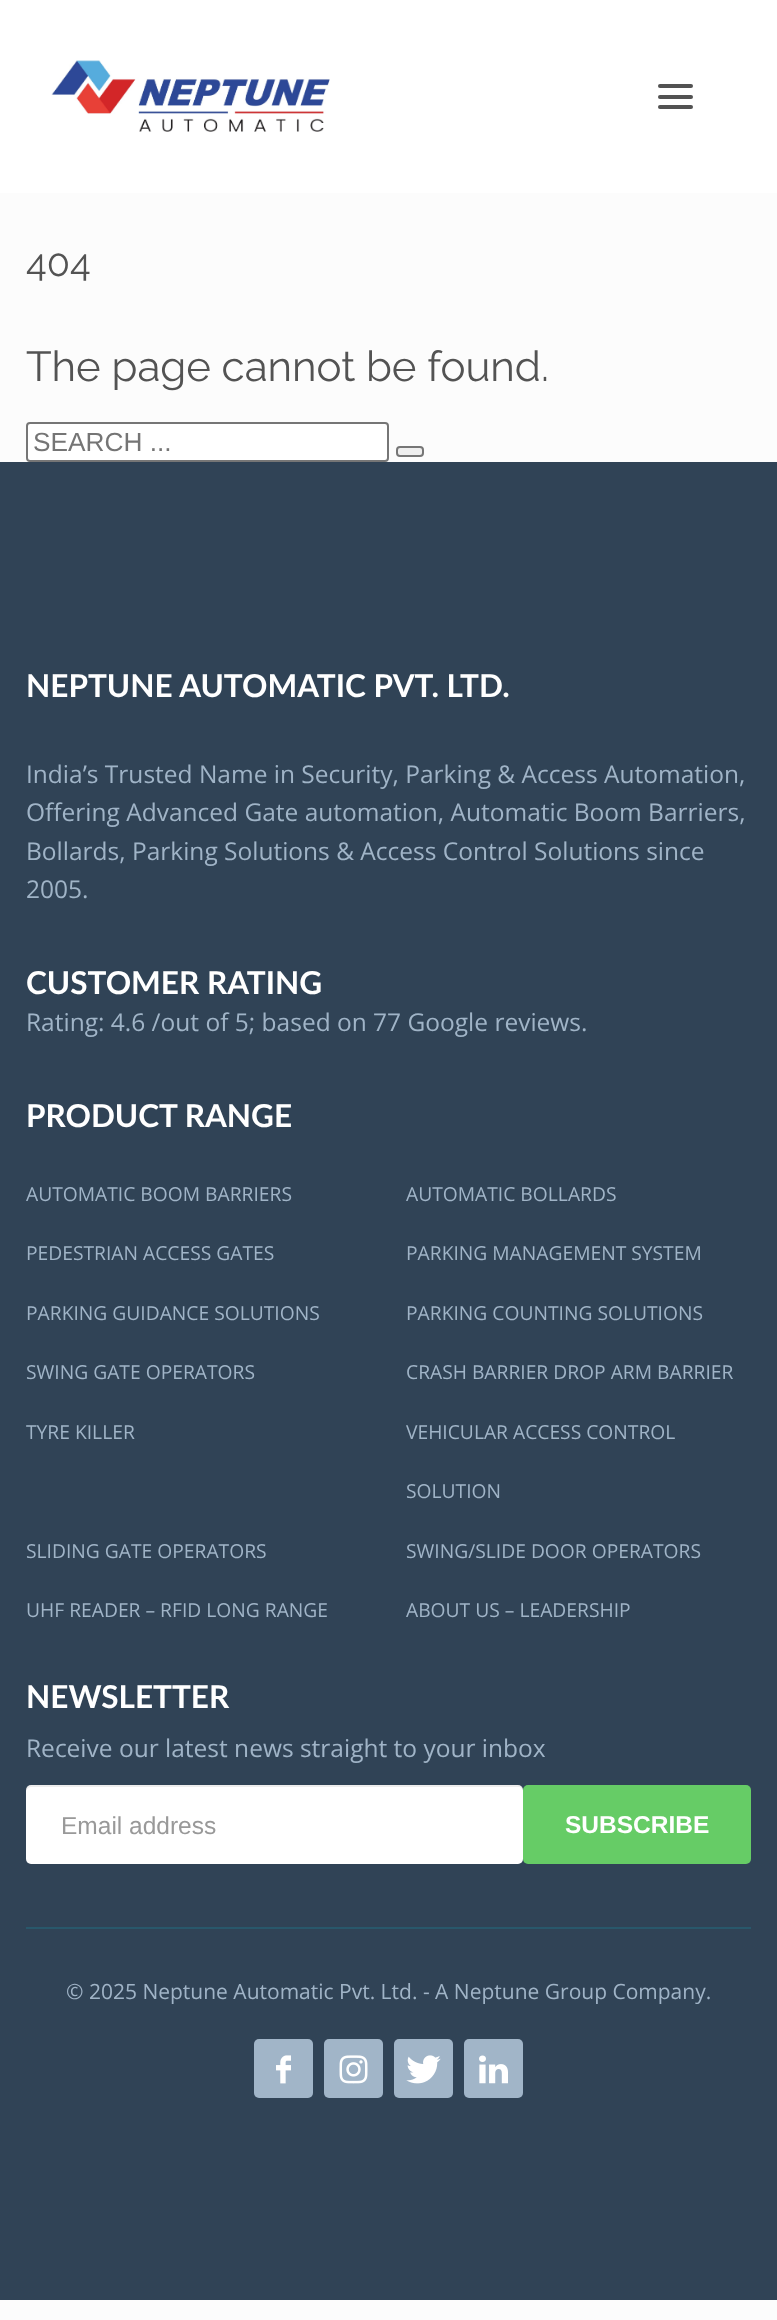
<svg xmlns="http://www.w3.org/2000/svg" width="777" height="2320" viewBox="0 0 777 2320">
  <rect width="100%" height="100%" fill="#fcfcfc"/>
  <rect x="0" y="0" width="777" height="193" fill="#ffffff"/>
  <image x="51" y="60" width="279" height="72" href="img1.png"/>
  <rect x="658" y="84" width="35" height="4" rx="2" fill="#525252"/>
  <rect x="658" y="95" width="35" height="4" rx="2" fill="#525252"/>
  <rect x="658" y="105" width="35" height="4" rx="2" fill="#525252"/>
  <text x="26" y="276" font-family="Raleway" font-size="38" fill="#535353">404</text>
  <text x="26" y="381" font-family="Raleway" font-size="42" fill="#535353">The page cannot be found.</text>
  <rect x="27" y="423" width="361" height="38" rx="3" fill="#ffffff" stroke="#767676" stroke-width="2"/>
  <text x="33" y="451" font-family="Liberation Sans" font-size="26.25" fill="#757575">SEARCH ...</text>
  <rect x="397" y="447" width="26" height="9" rx="3" fill="#efefef" stroke="#767676" stroke-width="2"/>
  <rect x="0" y="462" width="777" height="1838" fill="#304356"/>
  <text x="26" y="697" font-family="Lato" font-size="31.5" font-weight="bold" fill="#ffffff">NEPTUNE AUTOMATIC PVT. LTD.</text>
  <text x="26" y="783" font-family="Open Sans" font-size="24.5" fill="#a0b4c7">India’s Trusted Name in Security, Parking &amp; Access Automation,</text>
  <text x="26" y="821" font-family="Open Sans" font-size="24.5" fill="#a0b4c7">Offering Advanced Gate automation, Automatic Boom Barriers,</text>
  <text x="26" y="860" font-family="Open Sans" font-size="24.5" fill="#a0b4c7">Bollards, Parking Solutions &amp; Access Control Solutions since</text>
  <text x="26" y="898" font-family="Open Sans" font-size="24.5" fill="#a0b4c7">2005.</text>
  <text x="26" y="994" font-family="Lato" font-size="31.5" font-weight="bold" fill="#ffffff">CUSTOMER RATING</text>
  <text x="26" y="1031" font-family="Open Sans" font-size="24.5" fill="#a0b4c7">Rating: 4.6 /out of 5; based on 77 Google reviews.</text>
  <text x="26" y="1127" font-family="Lato" font-size="31.5" font-weight="bold" fill="#ffffff">PRODUCT RANGE</text>
  <text x="26" y="1201" font-family="Open Sans" font-size="19.25" fill="#a0b4c7">AUTOMATIC BOOM BARRIERS</text>
  <text x="406" y="1201" font-family="Open Sans" font-size="19.25" fill="#a0b4c7">AUTOMATIC BOLLARDS</text>
  <text x="26" y="1260" font-family="Open Sans" font-size="19.25" fill="#a0b4c7">PEDESTRIAN ACCESS GATES</text>
  <text x="406" y="1260" font-family="Open Sans" font-size="19.25" fill="#a0b4c7">PARKING MANAGEMENT SYSTEM</text>
  <text x="26" y="1320" font-family="Open Sans" font-size="19.25" fill="#a0b4c7">PARKING GUIDANCE SOLUTIONS</text>
  <text x="406" y="1320" font-family="Open Sans" font-size="19.25" fill="#a0b4c7">PARKING COUNTING SOLUTIONS</text>
  <text x="26" y="1379" font-family="Open Sans" font-size="19.25" fill="#a0b4c7">SWING GATE OPERATORS</text>
  <text x="406" y="1379" font-family="Open Sans" font-size="19.25" fill="#a0b4c7">CRASH BARRIER DROP ARM BARRIER</text>
  <text x="26" y="1439" font-family="Open Sans" font-size="19.25" fill="#a0b4c7">TYRE KILLER</text>
  <text x="406" y="1439" font-family="Open Sans" font-size="19.25" fill="#a0b4c7">VEHICULAR ACCESS CONTROL</text>
  <text x="406" y="1498" font-family="Open Sans" font-size="19.25" fill="#a0b4c7">SOLUTION</text>
  <text x="26" y="1558" font-family="Open Sans" font-size="19.25" fill="#a0b4c7">SLIDING GATE OPERATORS</text>
  <text x="406" y="1558" font-family="Open Sans" font-size="19.25" fill="#a0b4c7">SWING/SLIDE DOOR OPERATORS</text>
  <text x="26" y="1617" font-family="Open Sans" font-size="19.25" fill="#a0b4c7">UHF READER – RFID LONG RANGE</text>
  <text x="406" y="1617" font-family="Open Sans" font-size="19.25" fill="#a0b4c7">ABOUT US – LEADERSHIP</text>
  <text x="26" y="1708" font-family="Lato" font-size="31.5" font-weight="bold" fill="#ffffff">NEWSLETTER</text>
  <text x="26" y="1757" font-family="Open Sans" font-size="24.5" fill="#a0b4c7">Receive our latest news straight to your inbox</text>
  <rect x="26" y="1785" width="497" height="79" rx="5" fill="#ffffff"/>
  <path d="M32 1787H518C521 1787 523 1789 523 1792V1790C523 1787 521 1785 518 1785H31C28 1785 26 1787 26 1790V1792C26 1789 29 1787 32 1787Z" fill="#000000" fill-opacity="0.07"/>
  <text x="61" y="1834" font-family="Liberation Sans" font-size="24.5" fill="#999999">Email address</text>
  <rect x="523" y="1785" width="228" height="79" rx="5" fill="#66cc66"/>
  <text x="565" y="1833" font-family="Liberation Sans" font-size="24.5" font-weight="bold" fill="#ffffff">SUBSCRIBE</text>
  <rect x="26" y="1927" width="725" height="2" fill="#29586b"/>
  <text x="66" y="1999" font-family="Open Sans" font-size="21" fill="#a0b4c7">© 2025 Neptune Automatic Pvt. Ltd. - A Neptune Group Company.</text>
  <rect x="254" y="2039" width="59" height="59" rx="5" fill="#a1b5c8"/>
  <image x="276" y="2055" width="15" height="29" href="img2.png"/>
  <rect x="324" y="2039" width="59" height="59" rx="5" fill="#a1b5c8"/>
  <image x="339" y="2055" width="29" height="29" href="img3.png"/>
  <rect x="394" y="2039" width="59" height="59" rx="5" fill="#a1b5c8"/>
  <image x="406" y="2055" width="35" height="29" href="img4.png"/>
  <rect x="464" y="2039" width="59" height="59" rx="5" fill="#a1b5c8"/>
  <image x="479" y="2055" width="29" height="29" href="img5.png"/>
</svg>
